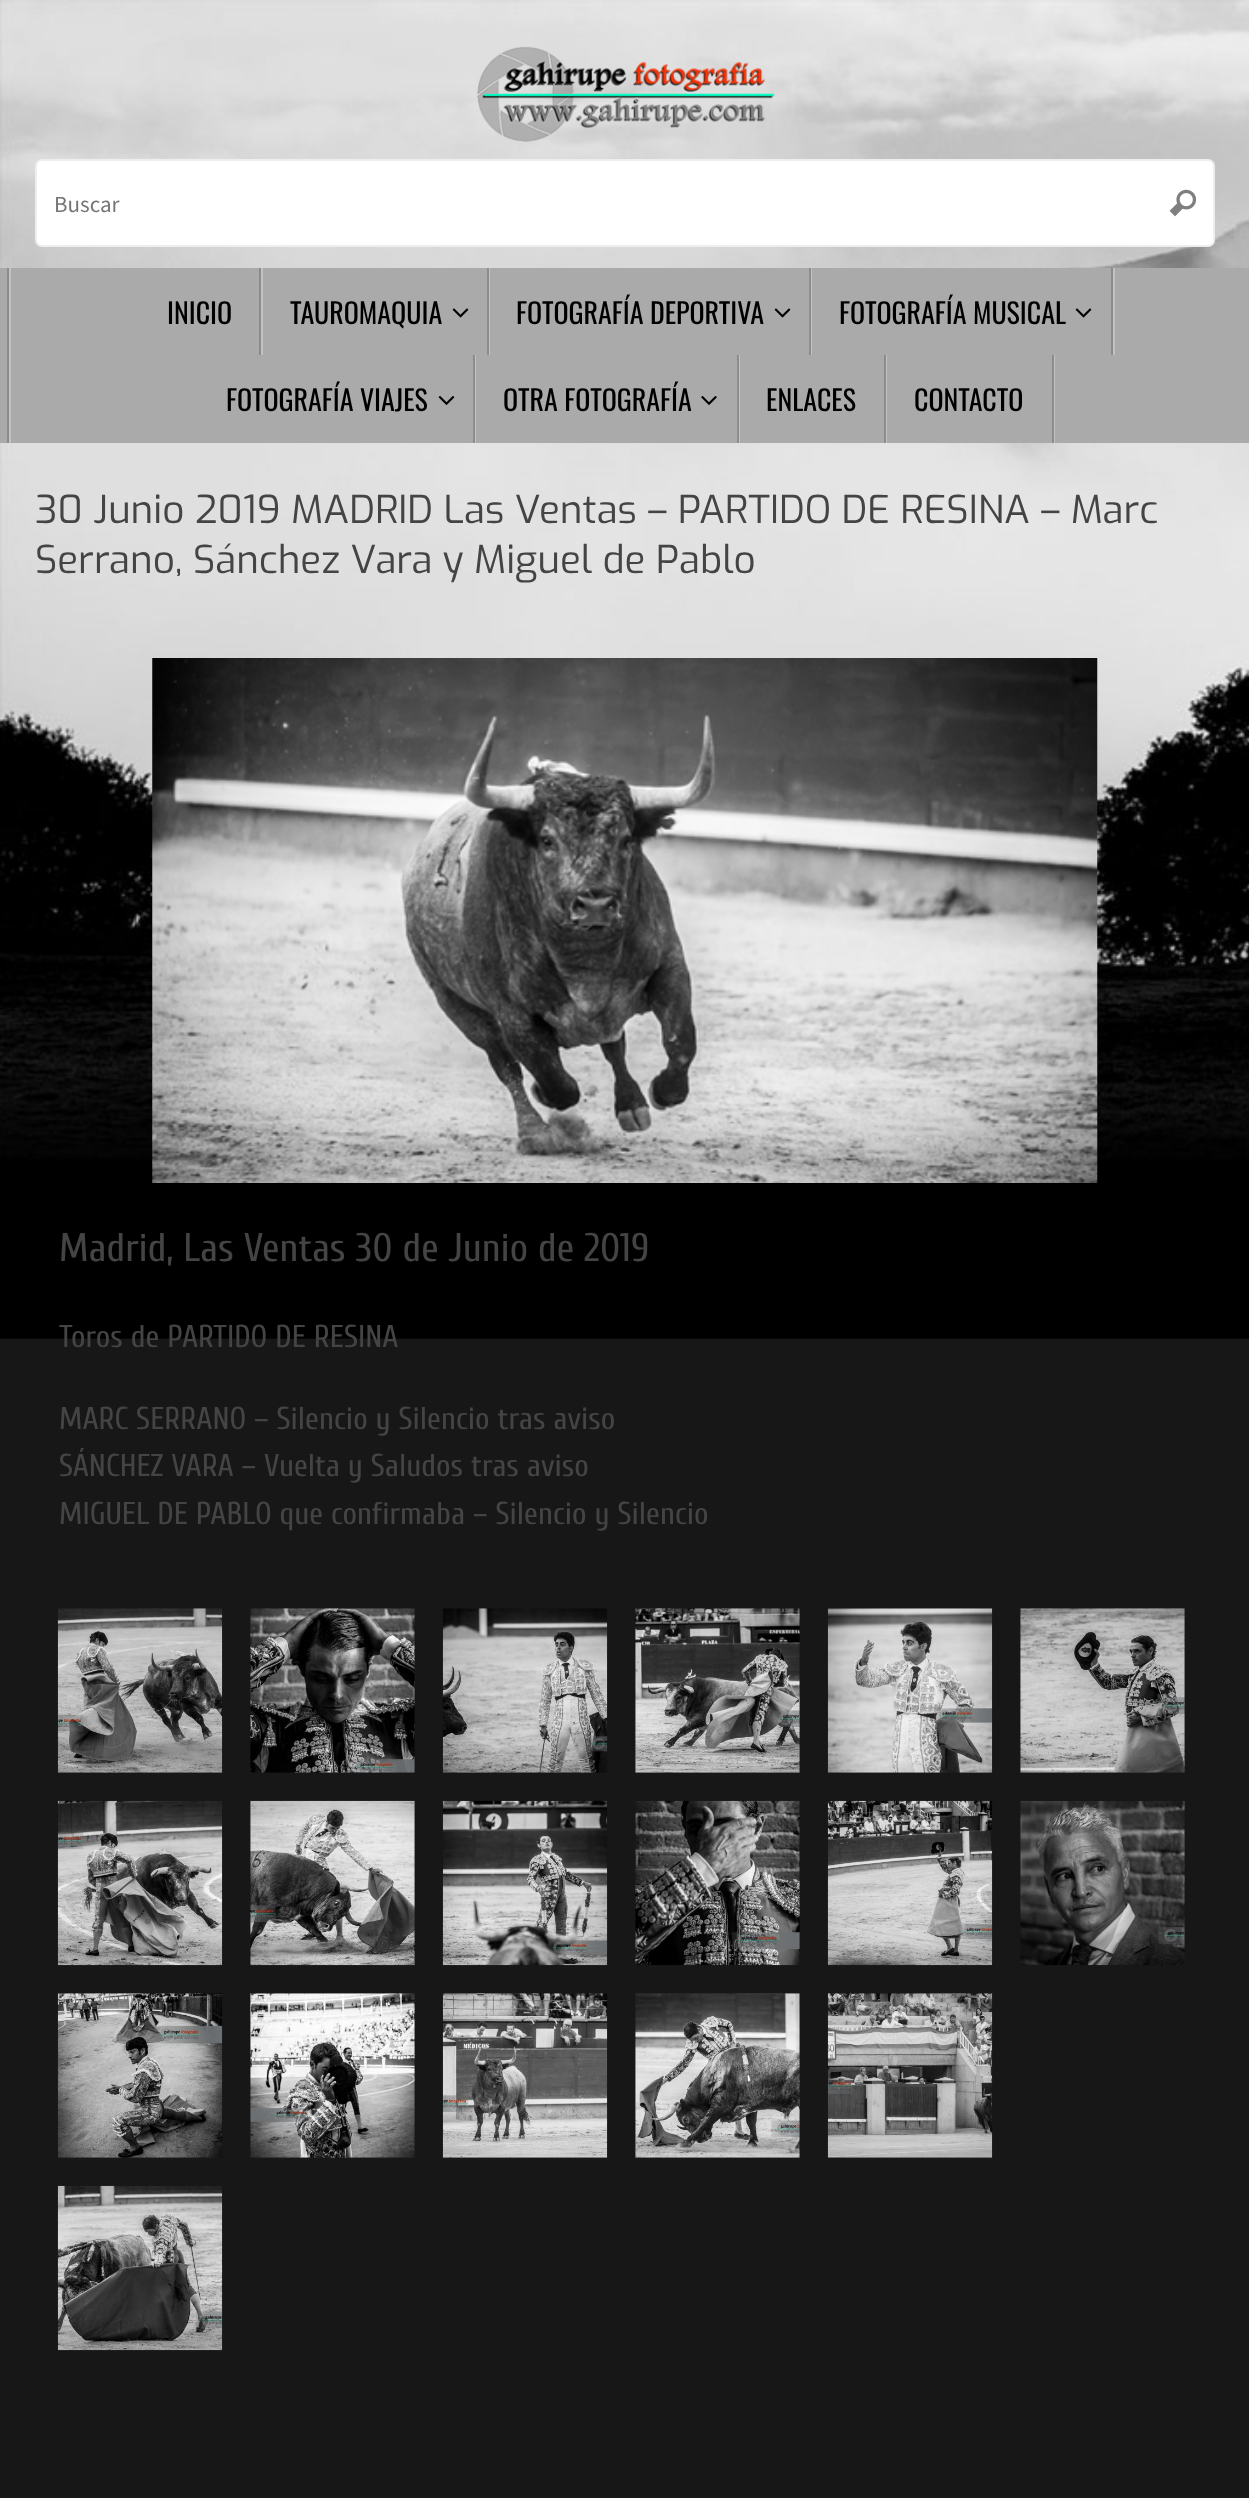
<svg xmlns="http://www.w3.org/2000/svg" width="1249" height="2498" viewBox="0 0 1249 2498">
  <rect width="100%" height="100%" fill="#171717"/>
  <image x="0" y="0" width="1249" height="1339" href="img1.png"/>
  <image x="477" y="46" width="298" height="96" href="img2.png"/>
  <rect x="36" y="160" width="1178" height="86" rx="6" fill="#ffffff" stroke="#eeeeee" stroke-width="2"/>
  <text x="54" y="212" font-family="Source Sans Pro" font-size="23" fill="#757575">Buscar</text>
  <image x="1169" y="189" width="28" height="28" href="img3.png"/>
  <rect x="0" y="268" width="1249" height="175" fill="#aaaaaa"/>
  <path d="M7 268V443H1239H9V268Z" fill="#8c8c8c"/>
  <rect x="9" y="268" width="2" height="175" fill="#c2c2c2"/>
  <rect x="261" y="268" width="2" height="87" fill="#c2c2c2"/>
  <rect x="259" y="268" width="2" height="87" fill="#8c8c8c"/>
  <text x="167" y="324" font-family="Oswald" font-size="28" fill="#000000">INICIO</text>
  <rect x="489" y="268" width="1" height="87" fill="#c2c2c2"/>
  <rect x="487" y="268" width="2" height="87" fill="#8c8c8c"/>
  <text x="290" y="324" font-family="Oswald" font-size="28" fill="#000000">TAUROMAQUIA</text>
  <image x="452" y="308" width="17" height="10" href="img4.png"/>
  <rect x="811" y="268" width="1" height="87" fill="#c2c2c2"/>
  <rect x="809" y="268" width="2" height="87" fill="#8c8c8c"/>
  <text x="516" y="324" font-family="Oswald" font-size="28" fill="#000000">FOTOGRAFÍA DEPORTIVA</text>
  <image x="774" y="308" width="17" height="10" href="img4.png"/>
  <rect x="1113" y="268" width="2" height="87" fill="#c2c2c2"/>
  <rect x="1111" y="268" width="2" height="87" fill="#8c8c8c"/>
  <text x="839" y="324" font-family="Oswald" font-size="28" fill="#000000">FOTOGRAFÍA MUSICAL</text>
  <image x="1075" y="308" width="17" height="10" href="img4.png"/>
  <path d="M200 355H474V443H200H476V355Z" fill="#c2c2c2"/>
  <rect x="473" y="355" width="2" height="88" fill="#8c8c8c"/>
  <text x="226" y="411" font-family="Oswald" font-size="28" fill="#000000">FOTOGRAFÍA VIAJES</text>
  <image x="438" y="396" width="17" height="9" href="img5.png"/>
  <path d="M476 355H738V443H476H740V355Z" fill="#c2c2c2"/>
  <rect x="737" y="355" width="2" height="88" fill="#8c8c8c"/>
  <text x="503" y="411" font-family="Oswald" font-size="28" fill="#000000">OTRA FOTOGRAFÍA</text>
  <image x="701" y="396" width="16" height="9" href="img6.png"/>
  <path d="M740 355H886V443H740H887V355Z" fill="#c2c2c2"/>
  <rect x="884" y="355" width="2" height="88" fill="#8c8c8c"/>
  <text x="766" y="411" font-family="Oswald" font-size="28" fill="#000000">ENLACES</text>
  <path d="M887 355H1054V443H887H1055V355Z" fill="#c2c2c2"/>
  <rect x="1052" y="355" width="2" height="88" fill="#8c8c8c"/>
  <text x="914" y="411" font-family="Oswald" font-size="28" fill="#000000">CONTACTO</text>
  <text x="35" y="523" font-family="Exo" font-size="38.5" fill="#444444">30 Junio 2019 MADRID Las Ventas – PARTIDO DE RESINA – Marc</text>
  <text x="35" y="573" font-family="Exo" font-size="38.5" fill="#444444">Serrano, Sánchez Vara y Miguel de Pablo</text>
  <image x="152" y="658" width="946" height="525" href="img7.png"/>
  <text x="59" y="1261" font-family="Cuprum" font-size="39.9" fill="#444444">Madrid, Las Ventas 30 de Junio de 2019</text>
  <text x="59" y="1347" font-family="Cuprum" font-size="31.6" fill="#444444">Toros de PARTIDO DE RESINA</text>
  <text x="59" y="1429" font-family="Cuprum" font-size="31.6" fill="#444444">MARC SERRANO – Silencio y Silencio tras aviso</text>
  <text x="59" y="1476" font-family="Cuprum" font-size="31.6" fill="#444444">SÁNCHEZ VARA – Vuelta y Saludos tras aviso</text>
  <text x="59" y="1524" font-family="Cuprum" font-size="31.6" fill="#444444">MIGUEL DE PABLO que confirmaba – Silencio y Silencio</text>
  <image x="57" y="1608" width="166" height="165" href="img8.png"/>
  <image x="250" y="1608" width="165" height="165" href="img9.png"/>
  <image x="442" y="1608" width="166" height="165" href="img10.png"/>
  <image x="635" y="1608" width="165" height="165" href="img11.png"/>
  <image x="827" y="1608" width="166" height="165" href="img12.png"/>
  <image x="1020" y="1608" width="165" height="165" href="img13.png"/>
  <image x="57" y="1800" width="166" height="166" href="img14.png"/>
  <image x="250" y="1800" width="165" height="166" href="img15.png"/>
  <image x="442" y="1800" width="166" height="166" href="img16.png"/>
  <image x="635" y="1800" width="165" height="166" href="img17.png"/>
  <image x="827" y="1800" width="166" height="166" href="img18.png"/>
  <image x="1020" y="1801" width="165" height="165" href="img19.png"/>
  <image x="57" y="1993" width="166" height="165" href="img20.png"/>
  <image x="250" y="1993" width="165" height="165" href="img21.png"/>
  <image x="442" y="1993" width="166" height="165" href="img22.png"/>
  <image x="635" y="1993" width="165" height="165" href="img23.png"/>
  <image x="827" y="1993" width="166" height="165" href="img24.png"/>
  <image x="57" y="2185" width="166" height="166" href="img25.png"/>
</svg>
